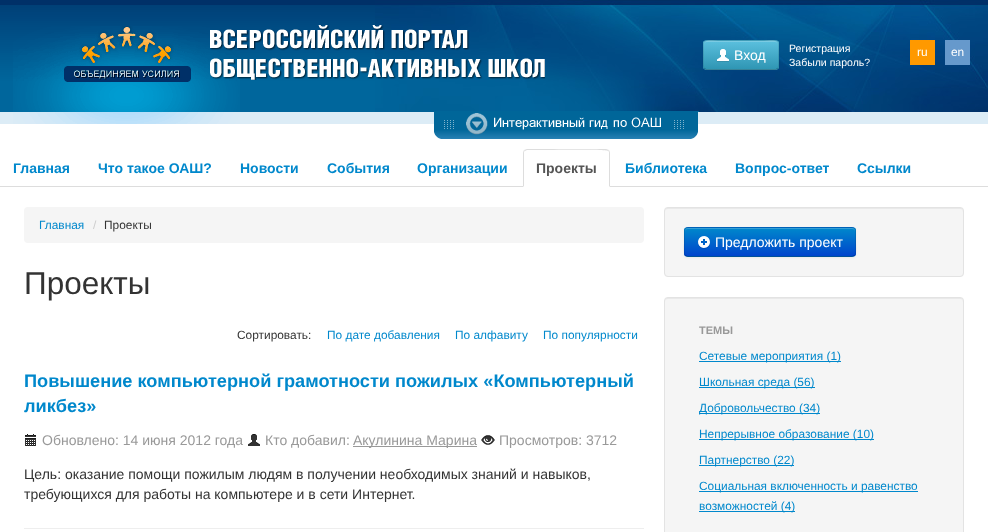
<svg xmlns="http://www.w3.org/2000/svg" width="988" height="532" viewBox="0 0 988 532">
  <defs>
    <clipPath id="clip1"><rect x="703" y="40" width="76" height="30" rx="4"/></clipPath>
    <linearGradient id="g1" gradientUnits="userSpaceOnUse" x1="741" y1="41" x2="741" y2="69"><stop offset="0" stop-color="#5bc0de"/><stop offset="1" stop-color="#2f96b4"/></linearGradient>
    <filter id="blur1" x="-50%" y="-200%" width="200%" height="500%"><feGaussianBlur stdDeviation="1"/></filter>
    <clipPath id="clip2"><rect x="684" y="227" width="172" height="30" rx="4"/></clipPath>
    <linearGradient id="g2" gradientUnits="userSpaceOnUse" x1="770" y1="228" x2="770" y2="256"><stop offset="0" stop-color="#0088cc"/><stop offset="1" stop-color="#0044cc"/></linearGradient>
  </defs>
  <rect width="100%" height="100%" fill="#ffffff"/>
  <image x="0" y="0" width="988" height="124" href="img1.png"/>
  <image x="375" y="0" width="613" height="112" href="img2.png"/>
  <image x="13" y="26" width="227" height="98" href="img3.png"/>
  <image x="210" y="25" width="335" height="55" href="img4.png"/>
  <rect x="703" y="40" width="76" height="30" rx="4" fill="#49afcd"/>
  <g clip-path="url(#clip1)">
    <rect x="703" y="41" width="76" height="28" fill="url(#g1)"/>
  </g>
  <path d="M707 42H775C777 42 778 43 778 45C778 38 768 41 764 41H718C714 41 704 38 704 45C704 43 705 42 707 42Z" fill="#ffffff" fill-opacity="0.2"/>
  <path d="M777.5 68.5L775.5 69.5H706.5L704.5 68.5" fill="none" stroke="#000000" stroke-opacity="0.25"/>
  <path d="M704.5 68.5C702.5 66.5 703.5 58 703.5 55C703.5 38.5 701 40.5 718.5 40.5H763.5C781 40.5 778.5 38.5 778.5 55C778.5 58 779.5 66.5 777.5 68.5" fill="none" stroke="#000000" stroke-opacity="0.1"/>
  <image x="717" y="49" width="12" height="13" href="img5.png"/>
  <text x="734" y="60" font-family="Liberation Sans" font-size="14" fill="#ffffff">Вход</text>
  <text x="789" y="52" font-family="Liberation Sans" font-size="10.5" fill="#ffffff">Регистрация</text>
  <text x="789" y="66" font-family="Liberation Sans" font-size="10.5" fill="#ffffff">Забыли пароль?</text>
  <rect x="910" y="40" width="25" height="25" fill="#ff9900"/>
  <text x="917" y="56" font-family="Liberation Sans" font-size="11.9" fill="#ffffff">ru</text>
  <rect x="945" y="40" width="25" height="25" fill="#6699cc"/>
  <text x="951" y="56" font-family="Liberation Sans" font-size="11.9" fill="#ffffff">en</text>
  <image x="434" y="111" width="265" height="28" href="img6.png"/>
  <rect x="0" y="186" width="988" height="1" fill="#dddddd"/>
  <text x="13" y="173" font-family="Liberation Sans" font-size="14" font-weight="bold" fill="#0088cc">Главная</text>
  <text x="98" y="173" font-family="Liberation Sans" font-size="14" font-weight="bold" fill="#0088cc">Что такое ОАШ?</text>
  <text x="240" y="173" font-family="Liberation Sans" font-size="14" font-weight="bold" fill="#0088cc">Новости</text>
  <text x="327" y="173" font-family="Liberation Sans" font-size="14" font-weight="bold" fill="#0088cc">События</text>
  <text x="417" y="173" font-family="Liberation Sans" font-size="14" font-weight="bold" fill="#0088cc">Организации</text>
  <path d="M527 149H606C608 149 610 151 610 153V187H523V153C523 151 525 149 527 149Z" fill="#ffffff"/>
  <path d="M527 149L524 150L525 151L527 150H540C547 150 606 149 608 151L609 150L606 149Z" fill="#dddddd"/>
  <path d="M610 187V153C610 152 609.5 151 609 150L608 151C609 151 609 152 609 153V186Z" fill="#dddddd"/>
  <path d="M523 187L524 186V153C524 152 524 151 525 151L524 150C523.5 151 523 152 523 153Z" fill="#dddddd"/>
  <text x="536" y="173" font-family="Liberation Sans" font-size="14" font-weight="bold" fill="#555555">Проекты</text>
  <text x="625" y="173" font-family="Liberation Sans" font-size="14" font-weight="bold" fill="#0088cc">Библиотека</text>
  <text x="735" y="173" font-family="Liberation Sans" font-size="14" font-weight="bold" fill="#0088cc">Вопрос-ответ</text>
  <text x="857" y="173" font-family="Liberation Sans" font-size="14" font-weight="bold" fill="#0088cc">Ссылки</text>
  <rect x="24" y="207" width="620" height="36" rx="4" fill="#f5f5f5"/>
  <text x="39" y="229" font-family="Liberation Sans" font-size="11.9" fill="#0088cc">Главная</text>
  <text x="93" y="229" font-family="Liberation Sans" font-size="11.9" fill="#cccccc">/</text>
  <text x="104" y="229" font-family="Liberation Sans" font-size="11.9" fill="#333333">Проекты</text>
  <text x="24" y="294" font-family="Liberation Sans" font-size="31.5" fill="#333333">Проекты</text>
  <text x="237" y="339" font-family="Liberation Sans" font-size="11.9" fill="#333333">Сортировать:</text>
  <text x="327" y="339" font-family="Liberation Sans" font-size="11.9" fill="#0088cc">По дате добавления</text>
  <text x="455" y="339" font-family="Liberation Sans" font-size="11.9" fill="#0088cc">По алфавиту</text>
  <text x="543" y="339" font-family="Liberation Sans" font-size="11.9" fill="#0088cc">По популярности</text>
  <rect x="24" y="528" width="620" height="1" fill="#eeeeee"/>
  <text x="24" y="387" font-family="Liberation Sans" font-size="18.2" font-weight="bold" fill="#0088cc">Повышение компьютерной грамотности пожилых «Компьютерный</text>
  <text x="24" y="412" font-family="Liberation Sans" font-size="18.2" font-weight="bold" fill="#0088cc">ликбез»</text>
  <image x="25" y="434" width="11" height="12" href="img7.png"/>
  <text x="42" y="445" font-family="Liberation Sans" font-size="14" fill="#999999">Обновлено: 14 июня 2012 года</text>
  <image x="248" y="434" width="12" height="12" href="img8.png"/>
  <text x="265" y="445" font-family="Liberation Sans" font-size="14" fill="#999999">Кто добавил:</text>
  <rect x="353" y="446" width="124" height="1" fill="#999999"/>
  <text x="353" y="445" font-family="Liberation Sans" font-size="14" fill="#999999">Акулинина Марина</text>
  <image x="481" y="435" width="14" height="10" href="img9.png"/>
  <text x="499" y="445" font-family="Liberation Sans" font-size="14" fill="#999999">Просмотров: 3712</text>
  <text x="24" y="479" font-family="Liberation Sans" font-size="14" fill="#333333">Цель: оказание помощи пожилым людям в получении необходимых знаний и навыков,</text>
  <text x="24" y="499" font-family="Liberation Sans" font-size="14" fill="#333333">требующихся для работы на компьютере и в сети Интернет.</text>
  <rect x="664" y="207" width="300" height="70" rx="4" fill="#f5f5f5"/>
  <path d="M668 209H960C962 209 963 210 963 212L962 209L961 208H668C666 208 665 210 665 212C665 210 666 209 668 209Z" fill="#e9e9e9"/>
  <rect x="664.5" y="207.5" width="299" height="69" rx="3.5" fill="none" stroke="#e3e3e3"/>
  <rect x="684" y="228" width="172" height="30" rx="4" fill="#000000" fill-opacity="0.05" filter="url(#blur1)"/>
  <rect x="684" y="227" width="172" height="30" rx="4" fill="#006dcc"/>
  <g clip-path="url(#clip2)">
    <rect x="684" y="228" width="172" height="28" fill="url(#g2)"/>
  </g>
  <path d="M688 229H852C854 229 855 230 855 232V231C855 229 854 228 852 228H688C686 228 685 229 685 231V232C685 230 686 229 688 229Z" fill="#ffffff" fill-opacity="0.2"/>
  <path d="M854.5 255.5L852 256.5H687.5L685.5 255.5" fill="none" stroke="#000000" stroke-opacity="0.25"/>
  <path d="M685.5 255.5C683.5 253.5 684.5 245 684.5 242V234.5C684.5 232 684 227.5 688 227.5H852C856 227.5 855.5 232 855.5 234.5V242C855.5 245 856.5 253.5 854.5 255.5" fill="none" stroke="#000000" stroke-opacity="0.1"/>
  <image x="698" y="236" width="12" height="13" href="img10.png"/>
  <text x="715" y="247" font-family="Liberation Sans" font-size="14" fill="#ffffff">Предложить проект</text>
  <rect x="664" y="297" width="300" height="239" rx="4" fill="#f5f5f5"/>
  <path d="M668 299H960C962 299 963 300 963 302L962 299L961 298H668C666 298 665 300 665 302C665 300 666 299 668 299Z" fill="#e9e9e9"/>
  <rect x="664.5" y="297.5" width="299" height="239" rx="3.5" fill="none" stroke="#e3e3e3"/>
  <text x="699" y="334" font-family="Liberation Sans" font-size="11" font-weight="bold" fill="#999999">ТЕМЫ</text>
  <rect x="699" y="361" width="142" height="1" fill="#0088cc"/>
  <text x="699" y="360" font-family="Liberation Sans" font-size="11.9" fill="#0088cc">Сетевые мероприятия (1)</text>
  <rect x="699" y="387" width="116" height="1" fill="#0088cc"/>
  <text x="699" y="386" font-family="Liberation Sans" font-size="11.9" fill="#0088cc">Школьная среда (56)</text>
  <rect x="699" y="413" width="121" height="1" fill="#0088cc"/>
  <text x="699" y="412" font-family="Liberation Sans" font-size="11.9" fill="#0088cc">Добровольчество (34)</text>
  <rect x="699" y="439" width="175" height="1" fill="#0088cc"/>
  <text x="699" y="438" font-family="Liberation Sans" font-size="11.9" fill="#0088cc">Непрерывное образование (10)</text>
  <rect x="699" y="465" width="95" height="1" fill="#0088cc"/>
  <text x="699" y="464" font-family="Liberation Sans" font-size="11.9" fill="#0088cc">Партнерство (22)</text>
  <rect x="699" y="491" width="219" height="1" fill="#0088cc"/>
  <text x="699" y="490" font-family="Liberation Sans" font-size="11.9" fill="#0088cc">Социальная включенность и равенство</text>
  <rect x="699" y="511" width="96" height="1" fill="#0088cc"/>
  <text x="699" y="510" font-family="Liberation Sans" font-size="11.9" fill="#0088cc">возможностей (4)</text>
</svg>
